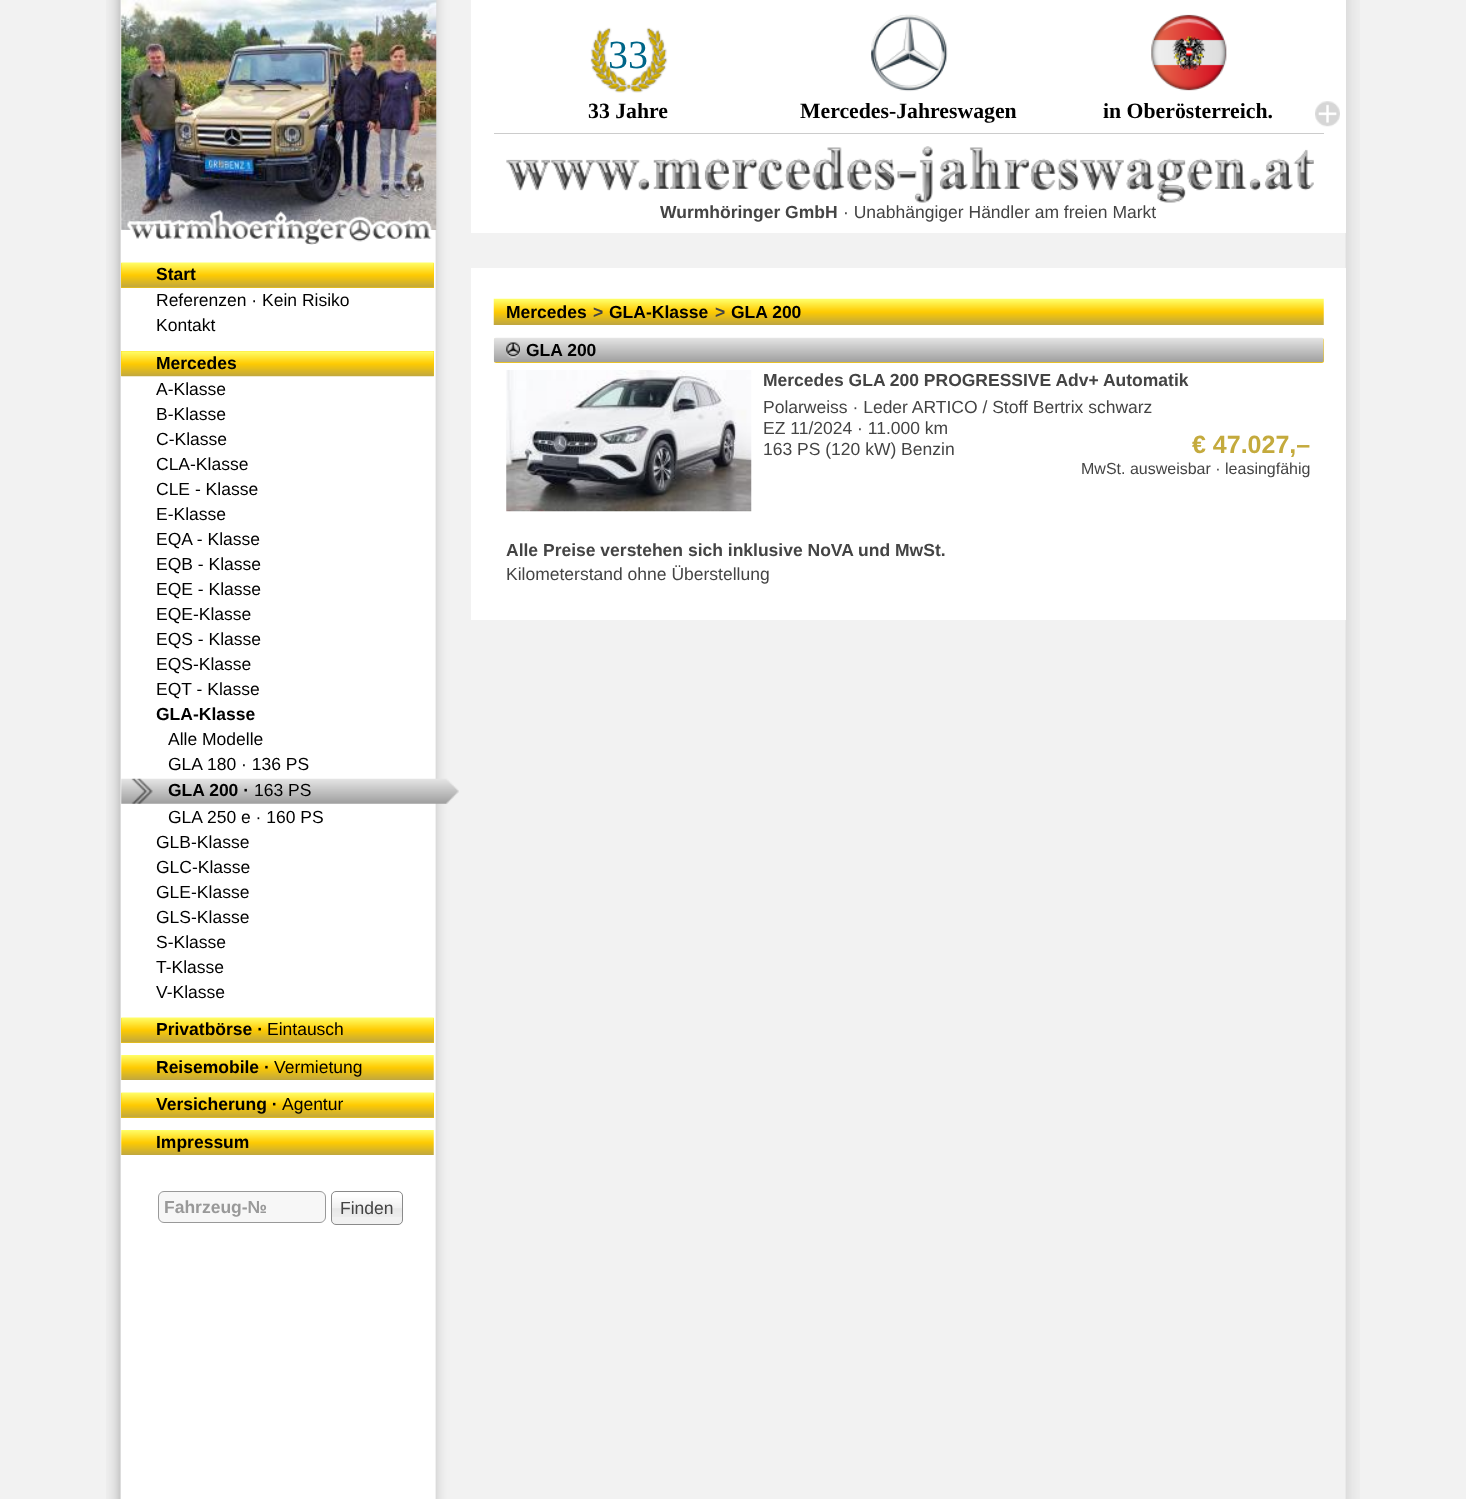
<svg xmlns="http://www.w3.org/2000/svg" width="1466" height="1499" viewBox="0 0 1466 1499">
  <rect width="100%" height="100%" fill="#f2f2f2"/>
  <image x="106" y="0" width="1254" height="1499" href="img1.png"/>
  <image x="121" y="0" width="316" height="230" href="img2.png"/>
  <image x="127" y="210" width="305" height="35" href="img3.png"/>
  <rect x="121" y="263" width="313" height="25" fill="#ffcc00"/>
  <image x="121" y="262" width="313" height="26" href="img4.png"/>
  <text x="156" y="280" font-family="Liberation Sans" font-size="17.5" font-weight="bold" fill="#000000">Start</text>
  <text x="156" y="306" font-family="Liberation Sans" font-size="17.5" fill="#000000">Referenzen · Kein Risiko</text>
  <text x="156" y="331" font-family="Liberation Sans" font-size="17.5" fill="#000000">Kontakt</text>
  <rect x="121" y="351" width="313" height="25" fill="#ffcc00"/>
  <image x="121" y="351" width="313" height="26" href="img5.png"/>
  <text x="156" y="369" font-family="Liberation Sans" font-size="17.5" font-weight="bold" fill="#000000">Mercedes</text>
  <text x="156" y="395" font-family="Liberation Sans" font-size="17.5" fill="#000000">A-Klasse</text>
  <text x="156" y="420" font-family="Liberation Sans" font-size="17.5" fill="#000000">B-Klasse</text>
  <text x="156" y="445" font-family="Liberation Sans" font-size="17.5" fill="#000000">C-Klasse</text>
  <text x="156" y="470" font-family="Liberation Sans" font-size="17.5" fill="#000000">CLA-Klasse</text>
  <text x="156" y="495" font-family="Liberation Sans" font-size="17.5" fill="#000000">CLE - Klasse</text>
  <text x="156" y="520" font-family="Liberation Sans" font-size="17.5" fill="#000000">E-Klasse</text>
  <text x="156" y="545" font-family="Liberation Sans" font-size="17.5" fill="#000000">EQA - Klasse</text>
  <text x="156" y="570" font-family="Liberation Sans" font-size="17.5" fill="#000000">EQB - Klasse</text>
  <text x="156" y="595" font-family="Liberation Sans" font-size="17.5" fill="#000000">EQE - Klasse</text>
  <text x="156" y="620" font-family="Liberation Sans" font-size="17.5" fill="#000000">EQE-Klasse</text>
  <text x="156" y="645" font-family="Liberation Sans" font-size="17.5" fill="#000000">EQS - Klasse</text>
  <text x="156" y="670" font-family="Liberation Sans" font-size="17.5" fill="#000000">EQS-Klasse</text>
  <text x="156" y="695" font-family="Liberation Sans" font-size="17.5" fill="#000000">EQT - Klasse</text>
  <text x="156" y="720" font-family="Liberation Sans" font-size="17.5" font-weight="bold" fill="#000000">GLA-Klasse</text>
  <text x="168" y="745" font-family="Liberation Sans" font-size="17.5" fill="#000000">Alle Modelle</text>
  <text x="168" y="770" font-family="Liberation Sans" font-size="17.5" fill="#000000">GLA 180 · 136 PS</text>
  <image x="121" y="778" width="338" height="26" href="img6.png"/>
  <text x="168" y="796" font-family="Liberation Sans" font-size="17.5" font-weight="bold" fill="#000000">GLA 200 ·</text>
  <text x="254" y="796" font-family="Liberation Sans" font-size="17.5" fill="#000000">163 PS</text>
  <text x="168" y="823" font-family="Liberation Sans" font-size="17.5" fill="#000000">GLA 250 e · 160 PS</text>
  <text x="156" y="848" font-family="Liberation Sans" font-size="17.5" fill="#000000">GLB-Klasse</text>
  <text x="156" y="873" font-family="Liberation Sans" font-size="17.5" fill="#000000">GLC-Klasse</text>
  <text x="156" y="898" font-family="Liberation Sans" font-size="17.5" fill="#000000">GLE-Klasse</text>
  <text x="156" y="923" font-family="Liberation Sans" font-size="17.5" fill="#000000">GLS-Klasse</text>
  <text x="156" y="948" font-family="Liberation Sans" font-size="17.5" fill="#000000">S-Klasse</text>
  <text x="156" y="973" font-family="Liberation Sans" font-size="17.5" fill="#000000">T-Klasse</text>
  <text x="156" y="998" font-family="Liberation Sans" font-size="17.5" fill="#000000">V-Klasse</text>
  <rect x="121" y="1018" width="313" height="25" fill="#ffcc00"/>
  <image x="121" y="1017" width="313" height="26" href="img4.png"/>
  <text x="156" y="1035" font-family="Liberation Sans" font-size="17.5" font-weight="bold" fill="#000000">Privatbörse ·</text>
  <text x="267" y="1035" font-family="Liberation Sans" font-size="17.5" fill="#000000">Eintausch</text>
  <image x="121" y="1055" width="313" height="25" href="img7.png"/>
  <text x="156" y="1073" font-family="Liberation Sans" font-size="17.5" font-weight="bold" fill="#000000">Reisemobile ·</text>
  <text x="274" y="1073" font-family="Liberation Sans" font-size="17.5" fill="#000000">Vermietung</text>
  <rect x="121" y="1093" width="313" height="25" fill="#ffcc00"/>
  <image x="121" y="1092" width="313" height="26" href="img4.png"/>
  <text x="156" y="1110" font-family="Liberation Sans" font-size="17.5" font-weight="bold" fill="#000000">Versicherung ·</text>
  <text x="282" y="1110" font-family="Liberation Sans" font-size="17.5" fill="#000000">Agentur</text>
  <image x="121" y="1130" width="313" height="25" href="img7.png"/>
  <text x="156" y="1148" font-family="Liberation Sans" font-size="17.5" font-weight="bold" fill="#000000">Impressum</text>
  <rect x="158.5" y="1191.5" width="167" height="31" rx="5.5" fill="#f7f7f7" stroke="#999999"/>
  <text x="164" y="1213" font-family="Liberation Sans" font-size="17.5" font-weight="bold" fill="#999999">Fahrzeug-№</text>
  <rect x="331" y="1191" width="72" height="34" rx="5" fill="#f1f1f1"/>
  <image x="331" y="1191" width="71" height="26" href="img8.png"/>
  <rect x="331.5" y="1191.5" width="71" height="33" rx="4.5" fill="none" stroke="#8a8a8a"/>
  <text x="340" y="1214" font-family="Liberation Sans" font-size="17.5" fill="#444444">Finden</text>
  <rect x="471" y="0" width="875" height="233" fill="#ffffff"/>
  <image x="590" y="27" width="78" height="66" href="img9.png"/>
  <text x="608" y="68" font-family="Liberation Serif" font-size="40" fill="#006688">33</text>
  <text x="588" y="118" font-family="Liberation Serif" font-size="21.75" font-weight="bold" fill="#000000">33 Jahre</text>
  <image x="870" y="14" width="78" height="78" href="img10.png"/>
  <text x="800" y="118" font-family="Liberation Serif" font-size="21.75" font-weight="bold" fill="#000000">Mercedes-Jahreswagen</text>
  <image x="1151" y="14" width="76" height="77" href="img11.png"/>
  <text x="1103" y="118" font-family="Liberation Serif" font-size="21.75" font-weight="bold" fill="#000000">in Oberösterreich.</text>
  <image x="1315" y="101" width="25" height="26" href="img12.png"/>
  <rect x="494" y="133" width="830" height="1" fill="#cccccc"/>
  <image x="506" y="146" width="808" height="57" href="img13.png"/>
  <text x="660" y="218" font-family="Liberation Sans" font-size="17.5" font-weight="bold" fill="#444444">Wurmhöringer GmbH</text>
  <text x="843" y="218" font-family="Liberation Sans" font-size="17.5" fill="#444444">· Unabhängiger Händler am freien Markt</text>
  <rect x="471" y="268" width="875" height="352" fill="#ffffff"/>
  <image x="493" y="298" width="831" height="27" href="img14.png"/>
  <text x="506" y="318" font-family="Liberation Sans" font-size="17.5" font-weight="bold" fill="#000000">Mercedes</text>
  <text x="593" y="318" font-family="Liberation Sans" font-size="17.5" font-weight="bold" fill="#444444">&gt;</text>
  <text x="609" y="318" font-family="Liberation Sans" font-size="17.5" font-weight="bold" fill="#000000">GLA-Klasse</text>
  <text x="715" y="318" font-family="Liberation Sans" font-size="17.5" font-weight="bold" fill="#444444">&gt;</text>
  <text x="731" y="318" font-family="Liberation Sans" font-size="17.5" font-weight="bold" fill="#000000">GLA 200</text>
  <rect x="494" y="338" width="830" height="25" rx="2.5" fill="#ffcc00"/>
  <image x="493" y="337" width="831" height="26" href="img15.png"/>
  <image x="506" y="342" width="14" height="16" href="img16.png"/>
  <text x="526" y="356" font-family="Liberation Sans" font-size="17.5" font-weight="bold" fill="#000000">GLA 200</text>
  <image x="506" y="370" width="246" height="142" href="img17.png"/>
  <text x="763" y="386" font-family="Liberation Sans" font-size="17.5" font-weight="bold" fill="#444444">Mercedes GLA 200 PROGRESSIVE Adv+ Automatik</text>
  <text x="763" y="413" font-family="Liberation Sans" font-size="17.5" fill="#444444">Polarweiss · Leder ARTICO / Stoff Bertrix schwarz</text>
  <text x="763" y="434" font-family="Liberation Sans" font-size="17.5" fill="#444444">EZ 11/2024 · 11.000 km</text>
  <text x="763" y="455" font-family="Liberation Sans" font-size="17.5" fill="#444444">163 PS (120 kW) Benzin</text>
  <text x="1192" y="453" font-family="Liberation Sans" font-size="25" font-weight="bold" fill="#c4aa3d">€ 47.027,–</text>
  <text x="1081" y="474" font-family="Liberation Sans" font-size="16" fill="#444444">MwSt. ausweisbar · leasingfähig</text>
  <text x="506" y="556" font-family="Liberation Sans" font-size="17.5" font-weight="bold" fill="#444444">Alle Preise verstehen sich inklusive NoVA und MwSt.</text>
  <text x="506" y="580" font-family="Liberation Sans" font-size="17.5" fill="#444444">Kilometerstand ohne Überstellung</text>
</svg>
